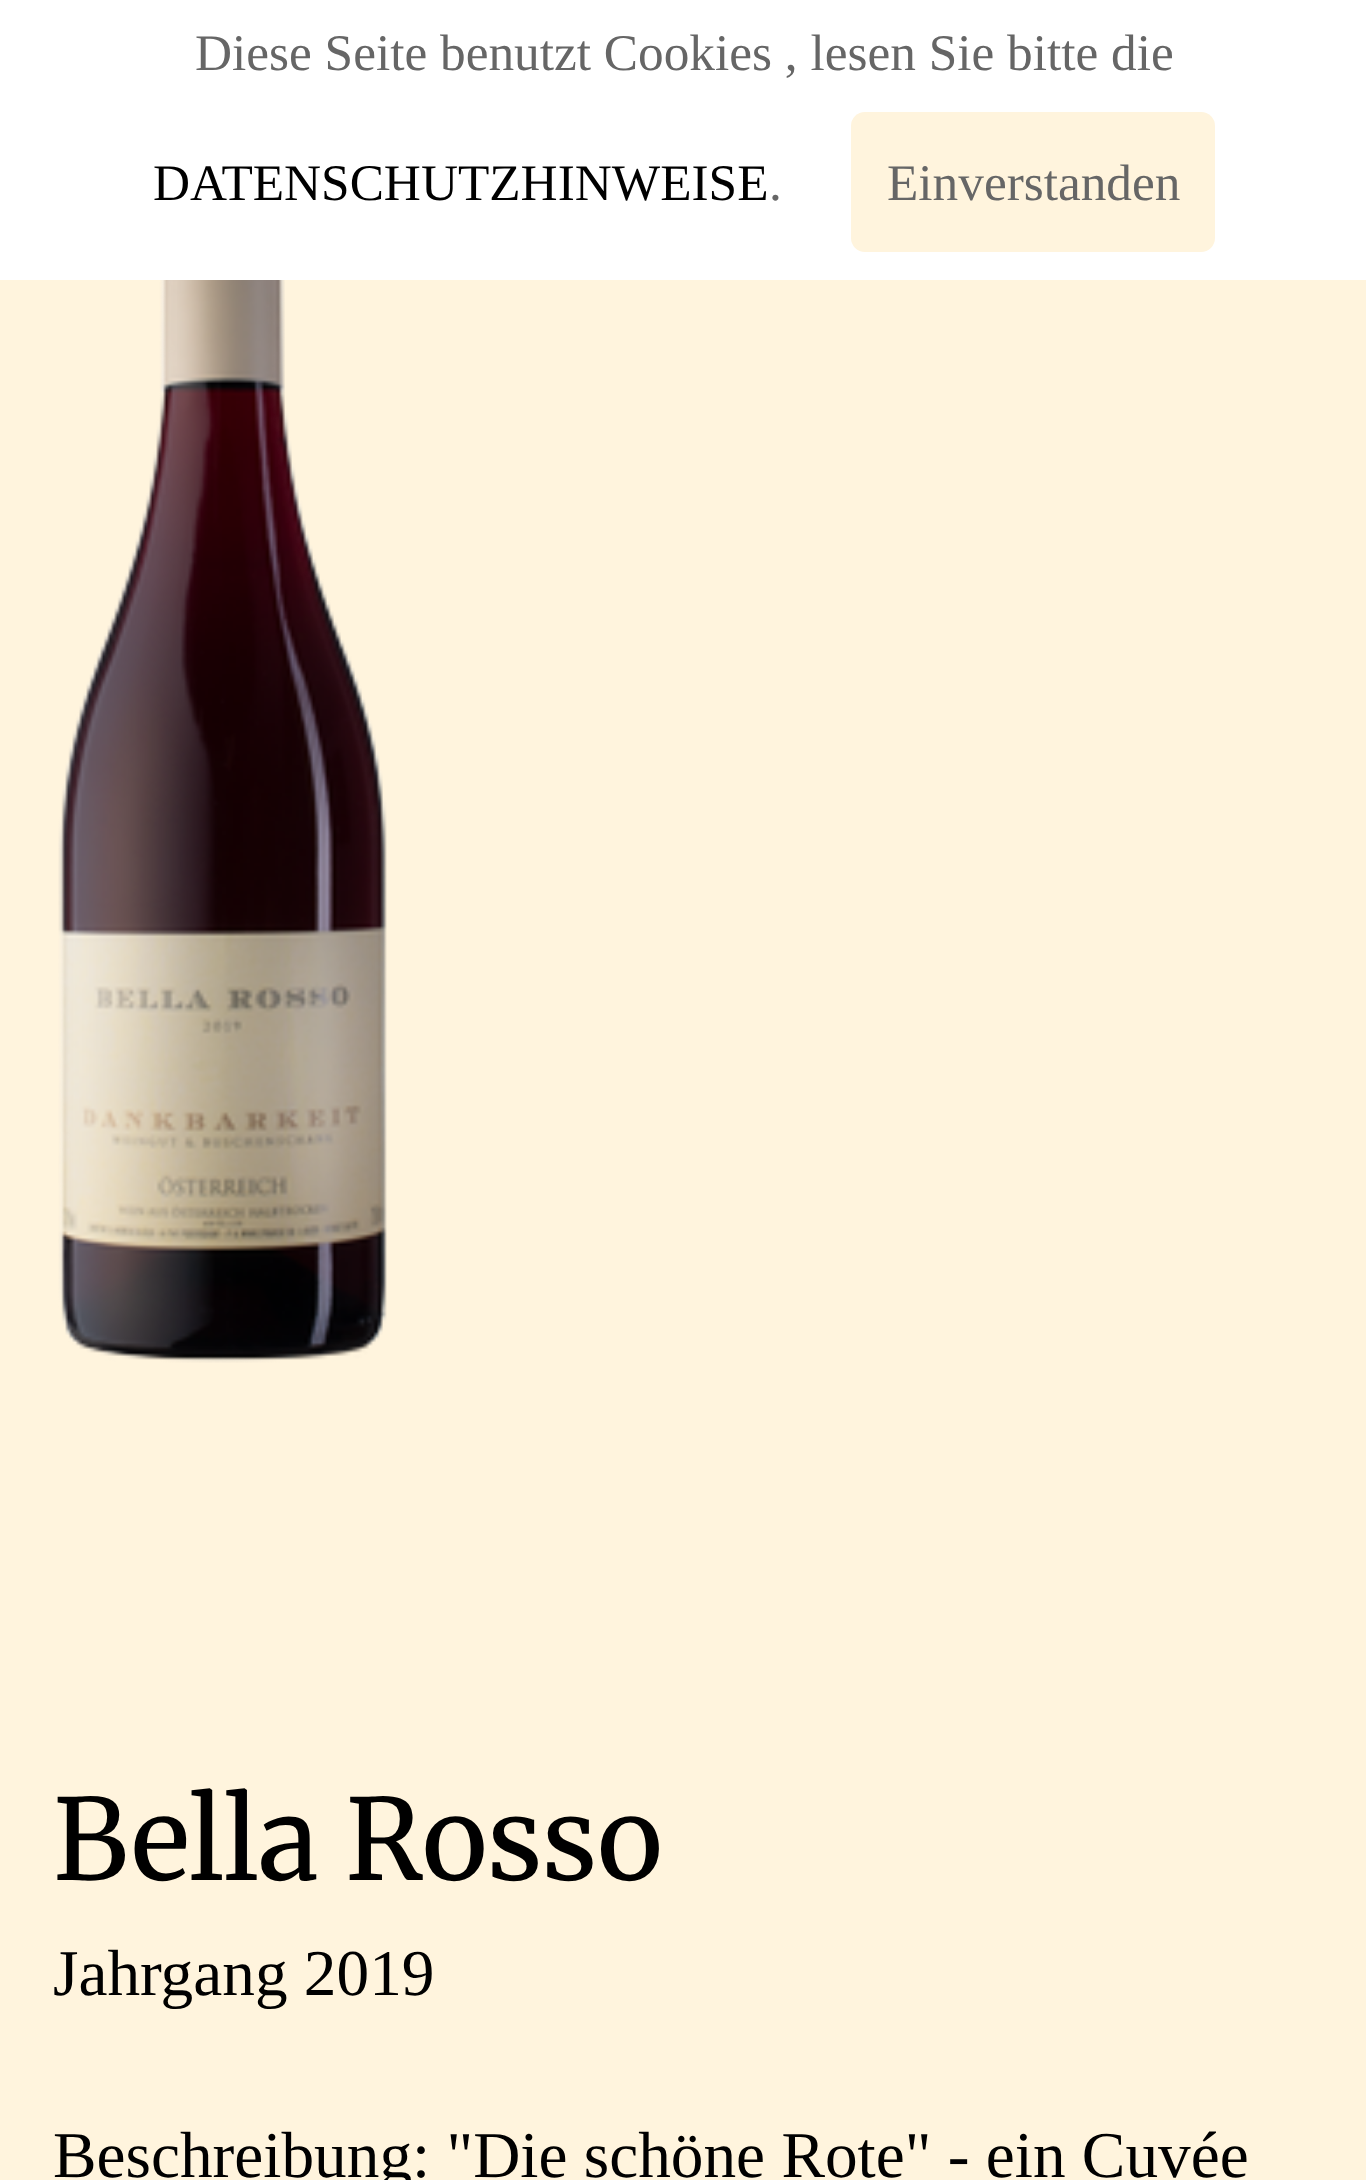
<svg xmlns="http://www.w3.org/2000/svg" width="1366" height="2180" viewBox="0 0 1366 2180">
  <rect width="100%" height="100%" fill="#fff4dd"/>
  <rect x="0" y="0" width="1366" height="280" fill="#ffffff"/>
  <text x="195" y="70" font-family="Liberation Serif" font-size="51.3" fill="#666666">Diese Seite benutzt Cookies , lesen Sie bitte die</text>
  <text x="153" y="200" font-family="Liberation Serif" font-size="51.3" fill="#000000">DATENSCHUTZHINWEISE</text>
  <text x="769" y="200" font-family="Liberation Serif" font-size="51.3" fill="#666666">.</text>
  <rect x="851" y="112" width="364" height="140" rx="14" fill="#fff4dd"/>
  <text x="887" y="200" font-family="Liberation Serif" font-size="51.3" fill="#666666">Einverstanden</text>
  <image x="58" y="280" width="329" height="1083" href="img1.png"/>
  <text x="53" y="1880" font-family="Merriweather" font-size="112" fill="#000000">Bella Rosso</text>
  <text x="53" y="1995" font-family="Liberation Serif" font-size="65.3" fill="#000000">Jahrgang 2019</text>
  <text x="53" y="2177" font-family="Liberation Serif" font-size="65.3" fill="#000000">Beschreibung: "Die schöne Rote" - ein Cuvée</text>
</svg>
